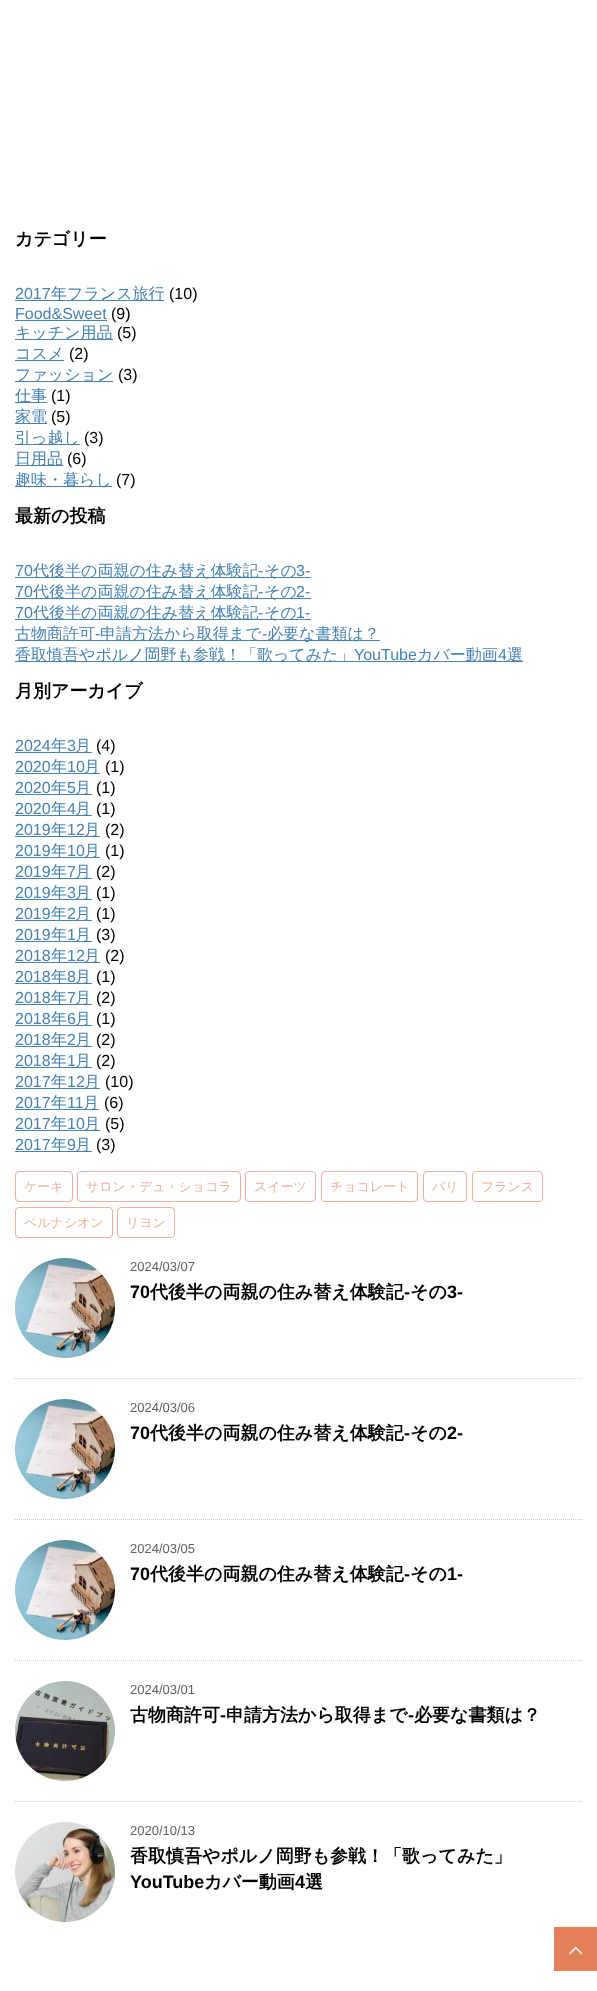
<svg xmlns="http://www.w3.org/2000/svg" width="597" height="1991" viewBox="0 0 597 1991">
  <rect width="100%" height="100%" fill="#ffffff"/>
  <text x="15" y="245" font-family="WenQuanYi Zen Hei" font-size="18" font-weight="bold" fill="#000000">カテゴリー</text>
  <text x="15" y="299" font-family="Liberation Sans" font-size="16" fill="#4682b4">2017</text>
  <rect x="15" y="300" width="149" height="1" fill="#4682b4"/>
  <text x="51" y="299" font-family="WenQuanYi Zen Hei" font-size="16" font-weight="500" fill="#4682b4">年フランス旅行</text>
  <text x="169" y="299" font-family="Liberation Sans" font-size="16" fill="#000000">(10)</text>
  <text x="15" y="319" font-family="Liberation Sans" font-size="16" fill="#4682b4">Food&amp;Sweet</text>
  <rect x="15" y="320" width="92" height="1" fill="#4682b4"/>
  <text x="111" y="319" font-family="Liberation Sans" font-size="16" fill="#000000">(9)</text>
  <rect x="15" y="339" width="98" height="1" fill="#4682b4"/>
  <text x="15" y="338" font-family="WenQuanYi Zen Hei" font-size="16" font-weight="500" fill="#4682b4">キッチン用品</text>
  <text x="117" y="338" font-family="Liberation Sans" font-size="16" fill="#000000">(5)</text>
  <text x="15" y="359" font-family="WenQuanYi Zen Hei" font-size="16" font-weight="500" fill="#4682b4">コスメ</text>
  <rect x="15" y="360" width="49" height="1" fill="#4682b4"/>
  <text x="69" y="359" font-family="Liberation Sans" font-size="16" fill="#000000">(2)</text>
  <rect x="15" y="381" width="98" height="1" fill="#4682b4"/>
  <text x="15" y="380" font-family="WenQuanYi Zen Hei" font-size="16" font-weight="500" fill="#4682b4">ファッション</text>
  <text x="118" y="380" font-family="Liberation Sans" font-size="16" fill="#000000">(3)</text>
  <rect x="15" y="402" width="32" height="1" fill="#4682b4"/>
  <text x="15" y="401" font-family="WenQuanYi Zen Hei" font-size="16" font-weight="500" fill="#4682b4">仕事</text>
  <text x="51" y="401" font-family="Liberation Sans" font-size="16" fill="#000000">(1)</text>
  <rect x="15" y="423" width="32" height="1" fill="#4682b4"/>
  <text x="15" y="422" font-family="WenQuanYi Zen Hei" font-size="16" font-weight="500" fill="#4682b4">家電</text>
  <text x="51" y="422" font-family="Liberation Sans" font-size="16" fill="#000000">(5)</text>
  <rect x="15" y="444" width="65" height="1" fill="#4682b4"/>
  <text x="15" y="443" font-family="WenQuanYi Zen Hei" font-size="16" font-weight="500" fill="#4682b4">引っ越し</text>
  <text x="84" y="443" font-family="Liberation Sans" font-size="16" fill="#000000">(3)</text>
  <rect x="15" y="465" width="48" height="1" fill="#4682b4"/>
  <text x="15" y="464" font-family="WenQuanYi Zen Hei" font-size="16" font-weight="500" fill="#4682b4">日用品</text>
  <text x="67" y="464" font-family="Liberation Sans" font-size="16" fill="#000000">(6)</text>
  <rect x="15" y="486" width="97" height="1" fill="#4682b4"/>
  <text x="15" y="485" font-family="WenQuanYi Zen Hei" font-size="16" font-weight="500" fill="#4682b4">趣味・暮らし</text>
  <text x="116" y="485" font-family="Liberation Sans" font-size="16" fill="#000000">(7)</text>
  <text x="15" y="522" font-family="WenQuanYi Zen Hei" font-size="18" font-weight="bold" fill="#000000">最新の投稿</text>
  <text x="15" y="576" font-family="Liberation Sans" font-size="16" fill="#4682b4">70</text>
  <rect x="15" y="577" width="296" height="1" fill="#4682b4"/>
  <text x="33" y="576" font-family="WenQuanYi Zen Hei" font-size="16" font-weight="500" fill="#4682b4">代後半の両親の住み替え体験記</text>
  <text x="258" y="576" font-family="Liberation Sans" font-size="16" fill="#4682b4">-</text>
  <text x="264" y="576" font-family="WenQuanYi Zen Hei" font-size="16" font-weight="500" fill="#4682b4">その</text>
  <text x="296" y="576" font-family="Liberation Sans" font-size="16" fill="#4682b4">3-</text>
  <text x="15" y="597" font-family="Liberation Sans" font-size="16" fill="#4682b4">70</text>
  <rect x="15" y="598" width="296" height="1" fill="#4682b4"/>
  <text x="33" y="597" font-family="WenQuanYi Zen Hei" font-size="16" font-weight="500" fill="#4682b4">代後半の両親の住み替え体験記</text>
  <text x="258" y="597" font-family="Liberation Sans" font-size="16" fill="#4682b4">-</text>
  <text x="264" y="597" font-family="WenQuanYi Zen Hei" font-size="16" font-weight="500" fill="#4682b4">その</text>
  <text x="296" y="597" font-family="Liberation Sans" font-size="16" fill="#4682b4">2-</text>
  <text x="15" y="618" font-family="Liberation Sans" font-size="16" fill="#4682b4">70</text>
  <rect x="15" y="619" width="296" height="1" fill="#4682b4"/>
  <text x="33" y="618" font-family="WenQuanYi Zen Hei" font-size="16" font-weight="500" fill="#4682b4">代後半の両親の住み替え体験記</text>
  <text x="258" y="618" font-family="Liberation Sans" font-size="16" fill="#4682b4">-</text>
  <text x="264" y="618" font-family="WenQuanYi Zen Hei" font-size="16" font-weight="500" fill="#4682b4">その</text>
  <text x="296" y="618" font-family="Liberation Sans" font-size="16" fill="#4682b4">1-</text>
  <rect x="15" y="640" width="365" height="1" fill="#4682b4"/>
  <text x="15" y="639" font-family="WenQuanYi Zen Hei" font-size="16" font-weight="500" fill="#4682b4">古物商許可</text>
  <text x="95" y="639" font-family="Liberation Sans" font-size="16" fill="#4682b4">-</text>
  <text x="100" y="639" font-family="WenQuanYi Zen Hei" font-size="16" font-weight="500" fill="#4682b4">申請方法から取得まで</text>
  <text x="262" y="639" font-family="Liberation Sans" font-size="16" fill="#4682b4">-</text>
  <text x="267" y="639" font-family="WenQuanYi Zen Hei" font-size="16" font-weight="500" fill="#4682b4">必要な書類は？</text>
  <rect x="15" y="661" width="508" height="1" fill="#4682b4"/>
  <text x="15" y="660" font-family="WenQuanYi Zen Hei" font-size="16" font-weight="500" fill="#4682b4">香取慎吾やポルノ岡野も参戦！「歌ってみた」</text>
  <text x="354" y="660" font-family="Liberation Sans" font-size="16" fill="#4682b4">YouTube</text>
  <text x="417" y="660" font-family="WenQuanYi Zen Hei" font-size="16" font-weight="500" fill="#4682b4">カバー動画</text>
  <text x="498" y="660" font-family="Liberation Sans" font-size="16" fill="#4682b4">4</text>
  <text x="507" y="660" font-family="WenQuanYi Zen Hei" font-size="16" font-weight="500" fill="#4682b4">選</text>
  <text x="15" y="697" font-family="WenQuanYi Zen Hei" font-size="18" font-weight="bold" fill="#000000">月別アーカイブ</text>
  <text x="15" y="751" font-family="Liberation Sans" font-size="16" fill="#4682b4">2024</text>
  <rect x="15" y="752" width="77" height="1" fill="#4682b4"/>
  <text x="51" y="751" font-family="WenQuanYi Zen Hei" font-size="16" font-weight="500" fill="#4682b4">年</text>
  <text x="67" y="751" font-family="Liberation Sans" font-size="16" fill="#4682b4">3</text>
  <text x="75" y="751" font-family="WenQuanYi Zen Hei" font-size="16" font-weight="500" fill="#4682b4">月</text>
  <text x="96" y="751" font-family="Liberation Sans" font-size="16" fill="#000000">(4)</text>
  <text x="15" y="772" font-family="Liberation Sans" font-size="16" fill="#4682b4">2020</text>
  <rect x="15" y="773" width="85" height="1" fill="#4682b4"/>
  <text x="51" y="772" font-family="WenQuanYi Zen Hei" font-size="16" font-weight="500" fill="#4682b4">年</text>
  <text x="67" y="772" font-family="Liberation Sans" font-size="16" fill="#4682b4">10</text>
  <text x="84" y="772" font-family="WenQuanYi Zen Hei" font-size="16" font-weight="500" fill="#4682b4">月</text>
  <text x="105" y="772" font-family="Liberation Sans" font-size="16" fill="#000000">(1)</text>
  <text x="15" y="793" font-family="Liberation Sans" font-size="16" fill="#4682b4">2020</text>
  <rect x="15" y="794" width="77" height="1" fill="#4682b4"/>
  <text x="51" y="793" font-family="WenQuanYi Zen Hei" font-size="16" font-weight="500" fill="#4682b4">年</text>
  <text x="67" y="793" font-family="Liberation Sans" font-size="16" fill="#4682b4">5</text>
  <text x="75" y="793" font-family="WenQuanYi Zen Hei" font-size="16" font-weight="500" fill="#4682b4">月</text>
  <text x="96" y="793" font-family="Liberation Sans" font-size="16" fill="#000000">(1)</text>
  <text x="15" y="814" font-family="Liberation Sans" font-size="16" fill="#4682b4">2020</text>
  <rect x="15" y="815" width="77" height="1" fill="#4682b4"/>
  <text x="51" y="814" font-family="WenQuanYi Zen Hei" font-size="16" font-weight="500" fill="#4682b4">年</text>
  <text x="67" y="814" font-family="Liberation Sans" font-size="16" fill="#4682b4">4</text>
  <text x="75" y="814" font-family="WenQuanYi Zen Hei" font-size="16" font-weight="500" fill="#4682b4">月</text>
  <text x="96" y="814" font-family="Liberation Sans" font-size="16" fill="#000000">(1)</text>
  <text x="15" y="835" font-family="Liberation Sans" font-size="16" fill="#4682b4">2019</text>
  <rect x="15" y="836" width="85" height="1" fill="#4682b4"/>
  <text x="51" y="835" font-family="WenQuanYi Zen Hei" font-size="16" font-weight="500" fill="#4682b4">年</text>
  <text x="67" y="835" font-family="Liberation Sans" font-size="16" fill="#4682b4">12</text>
  <text x="84" y="835" font-family="WenQuanYi Zen Hei" font-size="16" font-weight="500" fill="#4682b4">月</text>
  <text x="105" y="835" font-family="Liberation Sans" font-size="16" fill="#000000">(2)</text>
  <text x="15" y="856" font-family="Liberation Sans" font-size="16" fill="#4682b4">2019</text>
  <rect x="15" y="857" width="85" height="1" fill="#4682b4"/>
  <text x="51" y="856" font-family="WenQuanYi Zen Hei" font-size="16" font-weight="500" fill="#4682b4">年</text>
  <text x="67" y="856" font-family="Liberation Sans" font-size="16" fill="#4682b4">10</text>
  <text x="84" y="856" font-family="WenQuanYi Zen Hei" font-size="16" font-weight="500" fill="#4682b4">月</text>
  <text x="105" y="856" font-family="Liberation Sans" font-size="16" fill="#000000">(1)</text>
  <text x="15" y="877" font-family="Liberation Sans" font-size="16" fill="#4682b4">2019</text>
  <rect x="15" y="878" width="77" height="1" fill="#4682b4"/>
  <text x="51" y="877" font-family="WenQuanYi Zen Hei" font-size="16" font-weight="500" fill="#4682b4">年</text>
  <text x="67" y="877" font-family="Liberation Sans" font-size="16" fill="#4682b4">7</text>
  <text x="75" y="877" font-family="WenQuanYi Zen Hei" font-size="16" font-weight="500" fill="#4682b4">月</text>
  <text x="96" y="877" font-family="Liberation Sans" font-size="16" fill="#000000">(2)</text>
  <text x="15" y="898" font-family="Liberation Sans" font-size="16" fill="#4682b4">2019</text>
  <rect x="15" y="899" width="77" height="1" fill="#4682b4"/>
  <text x="51" y="898" font-family="WenQuanYi Zen Hei" font-size="16" font-weight="500" fill="#4682b4">年</text>
  <text x="67" y="898" font-family="Liberation Sans" font-size="16" fill="#4682b4">3</text>
  <text x="75" y="898" font-family="WenQuanYi Zen Hei" font-size="16" font-weight="500" fill="#4682b4">月</text>
  <text x="96" y="898" font-family="Liberation Sans" font-size="16" fill="#000000">(1)</text>
  <text x="15" y="919" font-family="Liberation Sans" font-size="16" fill="#4682b4">2019</text>
  <rect x="15" y="920" width="77" height="1" fill="#4682b4"/>
  <text x="51" y="919" font-family="WenQuanYi Zen Hei" font-size="16" font-weight="500" fill="#4682b4">年</text>
  <text x="67" y="919" font-family="Liberation Sans" font-size="16" fill="#4682b4">2</text>
  <text x="75" y="919" font-family="WenQuanYi Zen Hei" font-size="16" font-weight="500" fill="#4682b4">月</text>
  <text x="96" y="919" font-family="Liberation Sans" font-size="16" fill="#000000">(1)</text>
  <text x="15" y="940" font-family="Liberation Sans" font-size="16" fill="#4682b4">2019</text>
  <rect x="15" y="941" width="77" height="1" fill="#4682b4"/>
  <text x="51" y="940" font-family="WenQuanYi Zen Hei" font-size="16" font-weight="500" fill="#4682b4">年</text>
  <text x="67" y="940" font-family="Liberation Sans" font-size="16" fill="#4682b4">1</text>
  <text x="75" y="940" font-family="WenQuanYi Zen Hei" font-size="16" font-weight="500" fill="#4682b4">月</text>
  <text x="96" y="940" font-family="Liberation Sans" font-size="16" fill="#000000">(3)</text>
  <text x="15" y="961" font-family="Liberation Sans" font-size="16" fill="#4682b4">2018</text>
  <rect x="15" y="962" width="85" height="1" fill="#4682b4"/>
  <text x="51" y="961" font-family="WenQuanYi Zen Hei" font-size="16" font-weight="500" fill="#4682b4">年</text>
  <text x="67" y="961" font-family="Liberation Sans" font-size="16" fill="#4682b4">12</text>
  <text x="84" y="961" font-family="WenQuanYi Zen Hei" font-size="16" font-weight="500" fill="#4682b4">月</text>
  <text x="105" y="961" font-family="Liberation Sans" font-size="16" fill="#000000">(2)</text>
  <text x="15" y="982" font-family="Liberation Sans" font-size="16" fill="#4682b4">2018</text>
  <rect x="15" y="983" width="77" height="1" fill="#4682b4"/>
  <text x="51" y="982" font-family="WenQuanYi Zen Hei" font-size="16" font-weight="500" fill="#4682b4">年</text>
  <text x="67" y="982" font-family="Liberation Sans" font-size="16" fill="#4682b4">8</text>
  <text x="75" y="982" font-family="WenQuanYi Zen Hei" font-size="16" font-weight="500" fill="#4682b4">月</text>
  <text x="96" y="982" font-family="Liberation Sans" font-size="16" fill="#000000">(1)</text>
  <text x="15" y="1003" font-family="Liberation Sans" font-size="16" fill="#4682b4">2018</text>
  <rect x="15" y="1004" width="77" height="1" fill="#4682b4"/>
  <text x="51" y="1003" font-family="WenQuanYi Zen Hei" font-size="16" font-weight="500" fill="#4682b4">年</text>
  <text x="67" y="1003" font-family="Liberation Sans" font-size="16" fill="#4682b4">7</text>
  <text x="75" y="1003" font-family="WenQuanYi Zen Hei" font-size="16" font-weight="500" fill="#4682b4">月</text>
  <text x="96" y="1003" font-family="Liberation Sans" font-size="16" fill="#000000">(2)</text>
  <text x="15" y="1024" font-family="Liberation Sans" font-size="16" fill="#4682b4">2018</text>
  <rect x="15" y="1025" width="77" height="1" fill="#4682b4"/>
  <text x="51" y="1024" font-family="WenQuanYi Zen Hei" font-size="16" font-weight="500" fill="#4682b4">年</text>
  <text x="67" y="1024" font-family="Liberation Sans" font-size="16" fill="#4682b4">6</text>
  <text x="75" y="1024" font-family="WenQuanYi Zen Hei" font-size="16" font-weight="500" fill="#4682b4">月</text>
  <text x="96" y="1024" font-family="Liberation Sans" font-size="16" fill="#000000">(1)</text>
  <text x="15" y="1045" font-family="Liberation Sans" font-size="16" fill="#4682b4">2018</text>
  <rect x="15" y="1046" width="77" height="1" fill="#4682b4"/>
  <text x="51" y="1045" font-family="WenQuanYi Zen Hei" font-size="16" font-weight="500" fill="#4682b4">年</text>
  <text x="67" y="1045" font-family="Liberation Sans" font-size="16" fill="#4682b4">2</text>
  <text x="75" y="1045" font-family="WenQuanYi Zen Hei" font-size="16" font-weight="500" fill="#4682b4">月</text>
  <text x="96" y="1045" font-family="Liberation Sans" font-size="16" fill="#000000">(2)</text>
  <text x="15" y="1066" font-family="Liberation Sans" font-size="16" fill="#4682b4">2018</text>
  <rect x="15" y="1067" width="77" height="1" fill="#4682b4"/>
  <text x="51" y="1066" font-family="WenQuanYi Zen Hei" font-size="16" font-weight="500" fill="#4682b4">年</text>
  <text x="67" y="1066" font-family="Liberation Sans" font-size="16" fill="#4682b4">1</text>
  <text x="75" y="1066" font-family="WenQuanYi Zen Hei" font-size="16" font-weight="500" fill="#4682b4">月</text>
  <text x="96" y="1066" font-family="Liberation Sans" font-size="16" fill="#000000">(2)</text>
  <text x="15" y="1087" font-family="Liberation Sans" font-size="16" fill="#4682b4">2017</text>
  <rect x="15" y="1088" width="85" height="1" fill="#4682b4"/>
  <text x="51" y="1087" font-family="WenQuanYi Zen Hei" font-size="16" font-weight="500" fill="#4682b4">年</text>
  <text x="67" y="1087" font-family="Liberation Sans" font-size="16" fill="#4682b4">12</text>
  <text x="84" y="1087" font-family="WenQuanYi Zen Hei" font-size="16" font-weight="500" fill="#4682b4">月</text>
  <text x="105" y="1087" font-family="Liberation Sans" font-size="16" fill="#000000">(10)</text>
  <text x="15" y="1108" font-family="Liberation Sans" font-size="16" fill="#4682b4">2017</text>
  <rect x="15" y="1109" width="84" height="1" fill="#4682b4"/>
  <text x="51" y="1108" font-family="WenQuanYi Zen Hei" font-size="16" font-weight="500" fill="#4682b4">年</text>
  <text x="67" y="1108" font-family="Liberation Sans" font-size="16" fill="#4682b4">11</text>
  <text x="83" y="1108" font-family="WenQuanYi Zen Hei" font-size="16" font-weight="500" fill="#4682b4">月</text>
  <text x="104" y="1108" font-family="Liberation Sans" font-size="16" fill="#000000">(6)</text>
  <text x="15" y="1129" font-family="Liberation Sans" font-size="16" fill="#4682b4">2017</text>
  <rect x="15" y="1130" width="85" height="1" fill="#4682b4"/>
  <text x="51" y="1129" font-family="WenQuanYi Zen Hei" font-size="16" font-weight="500" fill="#4682b4">年</text>
  <text x="67" y="1129" font-family="Liberation Sans" font-size="16" fill="#4682b4">10</text>
  <text x="84" y="1129" font-family="WenQuanYi Zen Hei" font-size="16" font-weight="500" fill="#4682b4">月</text>
  <text x="105" y="1129" font-family="Liberation Sans" font-size="16" fill="#000000">(5)</text>
  <text x="15" y="1150" font-family="Liberation Sans" font-size="16" fill="#4682b4">2017</text>
  <rect x="15" y="1151" width="77" height="1" fill="#4682b4"/>
  <text x="51" y="1150" font-family="WenQuanYi Zen Hei" font-size="16" font-weight="500" fill="#4682b4">年</text>
  <text x="67" y="1150" font-family="Liberation Sans" font-size="16" fill="#4682b4">9</text>
  <text x="75" y="1150" font-family="WenQuanYi Zen Hei" font-size="16" font-weight="500" fill="#4682b4">月</text>
  <text x="96" y="1150" font-family="Liberation Sans" font-size="16" fill="#000000">(3)</text>
  <rect x="15.5" y="1171.5" width="57" height="30" rx="3.5" fill="none" stroke="#eeb099"/>
  <text x="24" y="1191" font-family="WenQuanYi Zen Hei" font-size="13" font-weight="500" fill="#eeb099">ケーキ</text>
  <rect x="77.5" y="1171.5" width="163" height="30" rx="3.5" fill="none" stroke="#eeb099"/>
  <text x="86" y="1191" font-family="WenQuanYi Zen Hei" font-size="13" font-weight="500" fill="#eeb099">サロン・デュ・ショコラ</text>
  <rect x="245.5" y="1171.5" width="70" height="30" rx="3.5" fill="none" stroke="#eeb099"/>
  <text x="254" y="1191" font-family="WenQuanYi Zen Hei" font-size="13" font-weight="500" fill="#eeb099">スイーツ</text>
  <rect x="321.5" y="1171.5" width="96" height="30" rx="3.5" fill="none" stroke="#eeb099"/>
  <text x="330" y="1191" font-family="WenQuanYi Zen Hei" font-size="13" font-weight="500" fill="#eeb099">チョコレート</text>
  <rect x="423.5" y="1171.5" width="43" height="30" rx="3.5" fill="none" stroke="#eeb099"/>
  <text x="432" y="1191" font-family="WenQuanYi Zen Hei" font-size="13" font-weight="500" fill="#eeb099">パリ</text>
  <rect x="472.5" y="1171.5" width="70" height="30" rx="3.5" fill="none" stroke="#eeb099"/>
  <text x="481" y="1191" font-family="WenQuanYi Zen Hei" font-size="13" font-weight="500" fill="#eeb099">フランス</text>
  <rect x="15.5" y="1207.5" width="97" height="30" rx="3.5" fill="none" stroke="#eeb099"/>
  <text x="24" y="1227" font-family="WenQuanYi Zen Hei" font-size="13" font-weight="500" fill="#eeb099">ベルナシオン</text>
  <rect x="117.5" y="1207.5" width="57" height="30" rx="3.5" fill="none" stroke="#eeb099"/>
  <text x="126" y="1227" font-family="WenQuanYi Zen Hei" font-size="13" font-weight="500" fill="#eeb099">リヨン</text>
  <path d="M15 1378.5H582" fill="none" stroke="#cccccc" stroke-dasharray="1 1"/>
  <image x="15" y="1258" width="100" height="100" href="img1.png"/>
  <text x="130" y="1271" font-family="Liberation Sans" font-size="13" fill="#616161">2024/03/07</text>
  <text x="130" y="1298" font-family="Liberation Sans" font-size="18" font-weight="bold" fill="#000000">70</text>
  <text x="150" y="1298" font-family="WenQuanYi Zen Hei" font-size="18" font-weight="bold" fill="#000000">代後半の両親の住み替え体験記</text>
  <text x="404" y="1298" font-family="Liberation Sans" font-size="18" font-weight="bold" fill="#000000">-</text>
  <text x="410" y="1298" font-family="WenQuanYi Zen Hei" font-size="18" font-weight="bold" fill="#000000">その</text>
  <text x="447" y="1298" font-family="Liberation Sans" font-size="18" font-weight="bold" fill="#000000">3-</text>
  <path d="M15 1519.5H582" fill="none" stroke="#cccccc" stroke-dasharray="1 1"/>
  <image x="15" y="1399" width="100" height="100" href="img1.png"/>
  <text x="130" y="1412" font-family="Liberation Sans" font-size="13" fill="#616161">2024/03/06</text>
  <text x="130" y="1439" font-family="Liberation Sans" font-size="18" font-weight="bold" fill="#000000">70</text>
  <text x="150" y="1439" font-family="WenQuanYi Zen Hei" font-size="18" font-weight="bold" fill="#000000">代後半の両親の住み替え体験記</text>
  <text x="404" y="1439" font-family="Liberation Sans" font-size="18" font-weight="bold" fill="#000000">-</text>
  <text x="410" y="1439" font-family="WenQuanYi Zen Hei" font-size="18" font-weight="bold" fill="#000000">その</text>
  <text x="447" y="1439" font-family="Liberation Sans" font-size="18" font-weight="bold" fill="#000000">2-</text>
  <path d="M15 1660.5H582" fill="none" stroke="#cccccc" stroke-dasharray="1 1"/>
  <image x="15" y="1540" width="100" height="100" href="img2.png"/>
  <text x="130" y="1553" font-family="Liberation Sans" font-size="13" fill="#616161">2024/03/05</text>
  <text x="130" y="1580" font-family="Liberation Sans" font-size="18" font-weight="bold" fill="#000000">70</text>
  <text x="150" y="1580" font-family="WenQuanYi Zen Hei" font-size="18" font-weight="bold" fill="#000000">代後半の両親の住み替え体験記</text>
  <text x="404" y="1580" font-family="Liberation Sans" font-size="18" font-weight="bold" fill="#000000">-</text>
  <text x="410" y="1580" font-family="WenQuanYi Zen Hei" font-size="18" font-weight="bold" fill="#000000">その</text>
  <text x="447" y="1580" font-family="Liberation Sans" font-size="18" font-weight="bold" fill="#000000">1-</text>
  <path d="M15 1801.5H582" fill="none" stroke="#cccccc" stroke-dasharray="1 1"/>
  <image x="15" y="1681" width="100" height="100" href="img3.png"/>
  <text x="130" y="1694" font-family="Liberation Sans" font-size="13" fill="#616161">2024/03/01</text>
  <text x="130" y="1721" font-family="WenQuanYi Zen Hei" font-size="18" font-weight="bold" fill="#000000">古物商許可</text>
  <text x="220" y="1721" font-family="Liberation Sans" font-size="18" font-weight="bold" fill="#000000">-</text>
  <text x="226" y="1721" font-family="WenQuanYi Zen Hei" font-size="18" font-weight="bold" fill="#000000">申請方法から取得まで</text>
  <text x="408" y="1721" font-family="Liberation Sans" font-size="18" font-weight="bold" fill="#000000">-</text>
  <text x="414" y="1721" font-family="WenQuanYi Zen Hei" font-size="18" font-weight="bold" fill="#000000">必要な書類は？</text>
  <image x="15" y="1822" width="100" height="100" href="img4.png"/>
  <text x="130" y="1835" font-family="Liberation Sans" font-size="13" fill="#616161">2020/10/13</text>
  <text x="130" y="1862" font-family="WenQuanYi Zen Hei" font-size="18" font-weight="bold" fill="#000000">香取慎吾やポルノ岡野も参戦！「歌ってみた」</text>
  <text x="130" y="1888" font-family="Liberation Sans" font-size="18" font-weight="bold" fill="#000000">YouTube</text>
  <text x="204" y="1888" font-family="WenQuanYi Zen Hei" font-size="18" font-weight="bold" fill="#000000">カバー動画</text>
  <text x="295" y="1888" font-family="Liberation Sans" font-size="18" font-weight="bold" fill="#000000">4</text>
  <text x="305" y="1888" font-family="WenQuanYi Zen Hei" font-size="18" font-weight="bold" fill="#000000">選</text>
  <rect x="554" y="1927" width="43" height="44" fill="#e4805c"/>
  <image x="569" y="1946" width="14" height="9" href="img5.png"/>
</svg>
